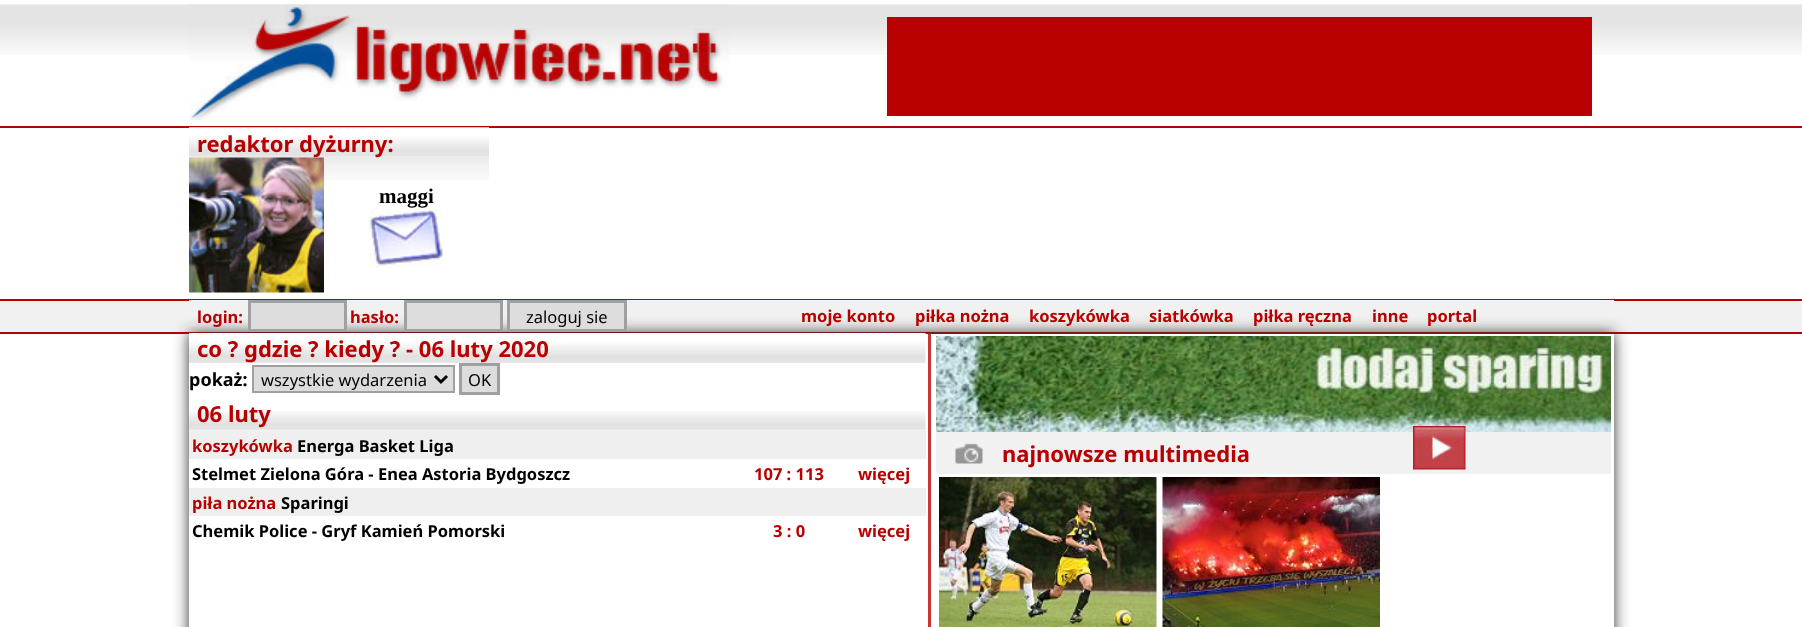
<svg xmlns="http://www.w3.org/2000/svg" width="1802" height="627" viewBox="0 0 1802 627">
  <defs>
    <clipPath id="clip1"><path d="M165 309H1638V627H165ZM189 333H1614V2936H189Z" clip-rule="evenodd"/></clipPath>
    <filter id="blur1" x="-50%" y="-200%" width="200%" height="500%"><feGaussianBlur stdDeviation="7.5"/></filter>
  </defs>
  <rect width="100%" height="100%" fill="#ffffff"/>
  <rect x="928" y="333" width="3" height="294" fill="#c83535"/>
  <image x="0" y="4" width="1802" height="51" href="img1.png"/>
  <image x="189" y="4" width="540" height="116" href="img2.png"/>
  <rect x="887" y="17" width="705" height="99" fill="#b90000"/>
  <rect x="0" y="126" width="1802" height="2" fill="#b90000"/>
  <image x="189" y="127" width="300" height="53" href="img3.png"/>
  <image x="189" y="127" width="300" height="29" href="img4.png"/>
  <text x="197" y="152" font-family="Noto Sans" font-size="22" font-weight="bold" fill="#b90000">redaktor dyżurny:</text>
  <image x="189" y="157" width="135" height="136" href="img5.png"/>
  <text x="379" y="203" font-family="Liberation Serif" font-size="21" font-weight="bold" fill="#000000">maggi</text>
  <image x="369" y="208" width="75" height="59" href="img6.png"/>
  <rect x="0" y="301" width="1802" height="31" fill="#f1f1f1"/>
  <rect x="0" y="299" width="1802" height="2" fill="#b90000"/>
  <rect x="0" y="332" width="1802" height="2" fill="#b90000"/>
  <rect x="928" y="333" width="3" height="1" fill="#bc0a0a"/>
  <rect x="189" y="300" width="1425" height="1" fill="#f1f1f1"/>
  <g clip-path="url(#clip1)">
    <rect x="189" y="333" width="1425" height="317" fill="#333333" filter="url(#blur1)"/>
  </g>
  <text x="197" y="323" font-family="Noto Sans" font-size="16.5" font-weight="bold" fill="#b90000">login:</text>
  <rect x="249.5" y="301.5" width="96" height="29" fill="#dddddd" stroke="#a0a0a0" stroke-width="3"/>
  <text x="350" y="323" font-family="Noto Sans" font-size="16.5" font-weight="bold" fill="#b90000">hasło:</text>
  <rect x="405.5" y="301.5" width="96" height="29" fill="#dddddd" stroke="#a0a0a0" stroke-width="3"/>
  <rect x="508.5" y="301.5" width="117" height="29" fill="#dddddd" stroke="#a0a0a0" stroke-width="3"/>
  <text x="526" y="323" font-family="Noto Sans" font-size="16.5" fill="#000000">zaloguj sie</text>
  <text x="801" y="322" font-family="Noto Sans" font-size="16.5" font-weight="bold" fill="#b90000">moje konto</text>
  <text x="915" y="322" font-family="Noto Sans" font-size="16.5" font-weight="bold" fill="#b90000">piłka nożna</text>
  <text x="1029" y="322" font-family="Noto Sans" font-size="16.5" font-weight="bold" fill="#b90000">koszykówka</text>
  <text x="1149" y="322" font-family="Noto Sans" font-size="16.5" font-weight="bold" fill="#b90000">siatkówka</text>
  <text x="1253" y="322" font-family="Noto Sans" font-size="16.5" font-weight="bold" fill="#b90000">piłka ręczna</text>
  <text x="1372" y="322" font-family="Noto Sans" font-size="16.5" font-weight="bold" fill="#b90000">inne</text>
  <text x="1427" y="322" font-family="Noto Sans" font-size="16.5" font-weight="bold" fill="#b90000">portal</text>
  <image x="189" y="333" width="737" height="30" href="img7.png"/>
  <text x="197" y="357" font-family="Noto Sans" font-size="22" font-weight="bold" fill="#b90000">co ? gdzie ? kiedy ? - 06 luty 2020</text>
  <text x="189" y="386" font-family="Noto Sans" font-size="18" font-weight="bold" fill="#000000">pokaż:</text>
  <rect x="253" y="366" width="201" height="26" fill="#dddddd" stroke="#a0a0a0" stroke-width="2"/>
  <path d="M435 376L441 382L447 376" fill="none" stroke="#000000" stroke-width="3"/>
  <text x="261" y="386" font-family="Noto Sans" font-size="16.5" fill="#000000">wszystkie wydarzenia</text>
  <rect x="460.5" y="364.5" width="38" height="29" fill="#dddddd" stroke="#a0a0a0" stroke-width="3"/>
  <text x="468" y="386" font-family="Noto Sans" font-size="16.5" fill="#000000">OK</text>
  <image x="189" y="411" width="737" height="20" href="img8.png"/>
  <text x="197" y="422" font-family="Noto Sans" font-size="22" font-weight="bold" fill="#b90000">06 luty</text>
  <rect x="189" y="431" width="737" height="28" fill="#efefef"/>
  <text x="192" y="452" font-family="Noto Sans" font-size="16.5" font-weight="bold" fill="#b90000">koszykówka</text>
  <text x="297" y="452" font-family="Noto Sans" font-size="16.5" font-weight="bold" fill="#000000">Energa Basket Liga</text>
  <text x="192" y="480" font-family="Noto Sans" font-size="16.5" font-weight="bold" fill="#000000">Stelmet Zielona Góra - Enea Astoria Bydgoszcz</text>
  <text x="754" y="480" font-family="Noto Sans" font-size="16.5" font-weight="bold" fill="#b90000">107 : 113</text>
  <text x="858" y="480" font-family="Noto Sans" font-size="16.5" font-weight="bold" fill="#b90000">więcej</text>
  <rect x="189" y="488" width="737" height="28" fill="#efefef"/>
  <text x="192" y="509" font-family="Noto Sans" font-size="16.5" font-weight="bold" fill="#b90000">piła nożna</text>
  <text x="281" y="509" font-family="Noto Sans" font-size="16.5" font-weight="bold" fill="#000000">Sparingi</text>
  <text x="192" y="537" font-family="Noto Sans" font-size="16.5" font-weight="bold" fill="#000000">Chemik Police - Gryf Kamień Pomorski</text>
  <text x="773" y="537" font-family="Noto Sans" font-size="16.5" font-weight="bold" fill="#b90000">3 : 0</text>
  <text x="858" y="537" font-family="Noto Sans" font-size="16.5" font-weight="bold" fill="#b90000">więcej</text>
  <image x="936" y="336" width="675" height="96" href="img9.png"/>
  <rect x="936" y="432" width="675" height="42" fill="#f1f1f1"/>
  <image x="1413" y="426" width="53" height="44" href="img10.png"/>
  <image x="939" y="477" width="218" height="150" href="img11.png"/>
  <image x="1162" y="477" width="218" height="150" href="img12.png"/>
  <image x="955" y="443" width="28" height="22" href="img13.png"/>
  <text x="1002" y="462" font-family="Noto Sans" font-size="22" font-weight="bold" fill="#b90000">najnowsze multimedia</text>
</svg>
